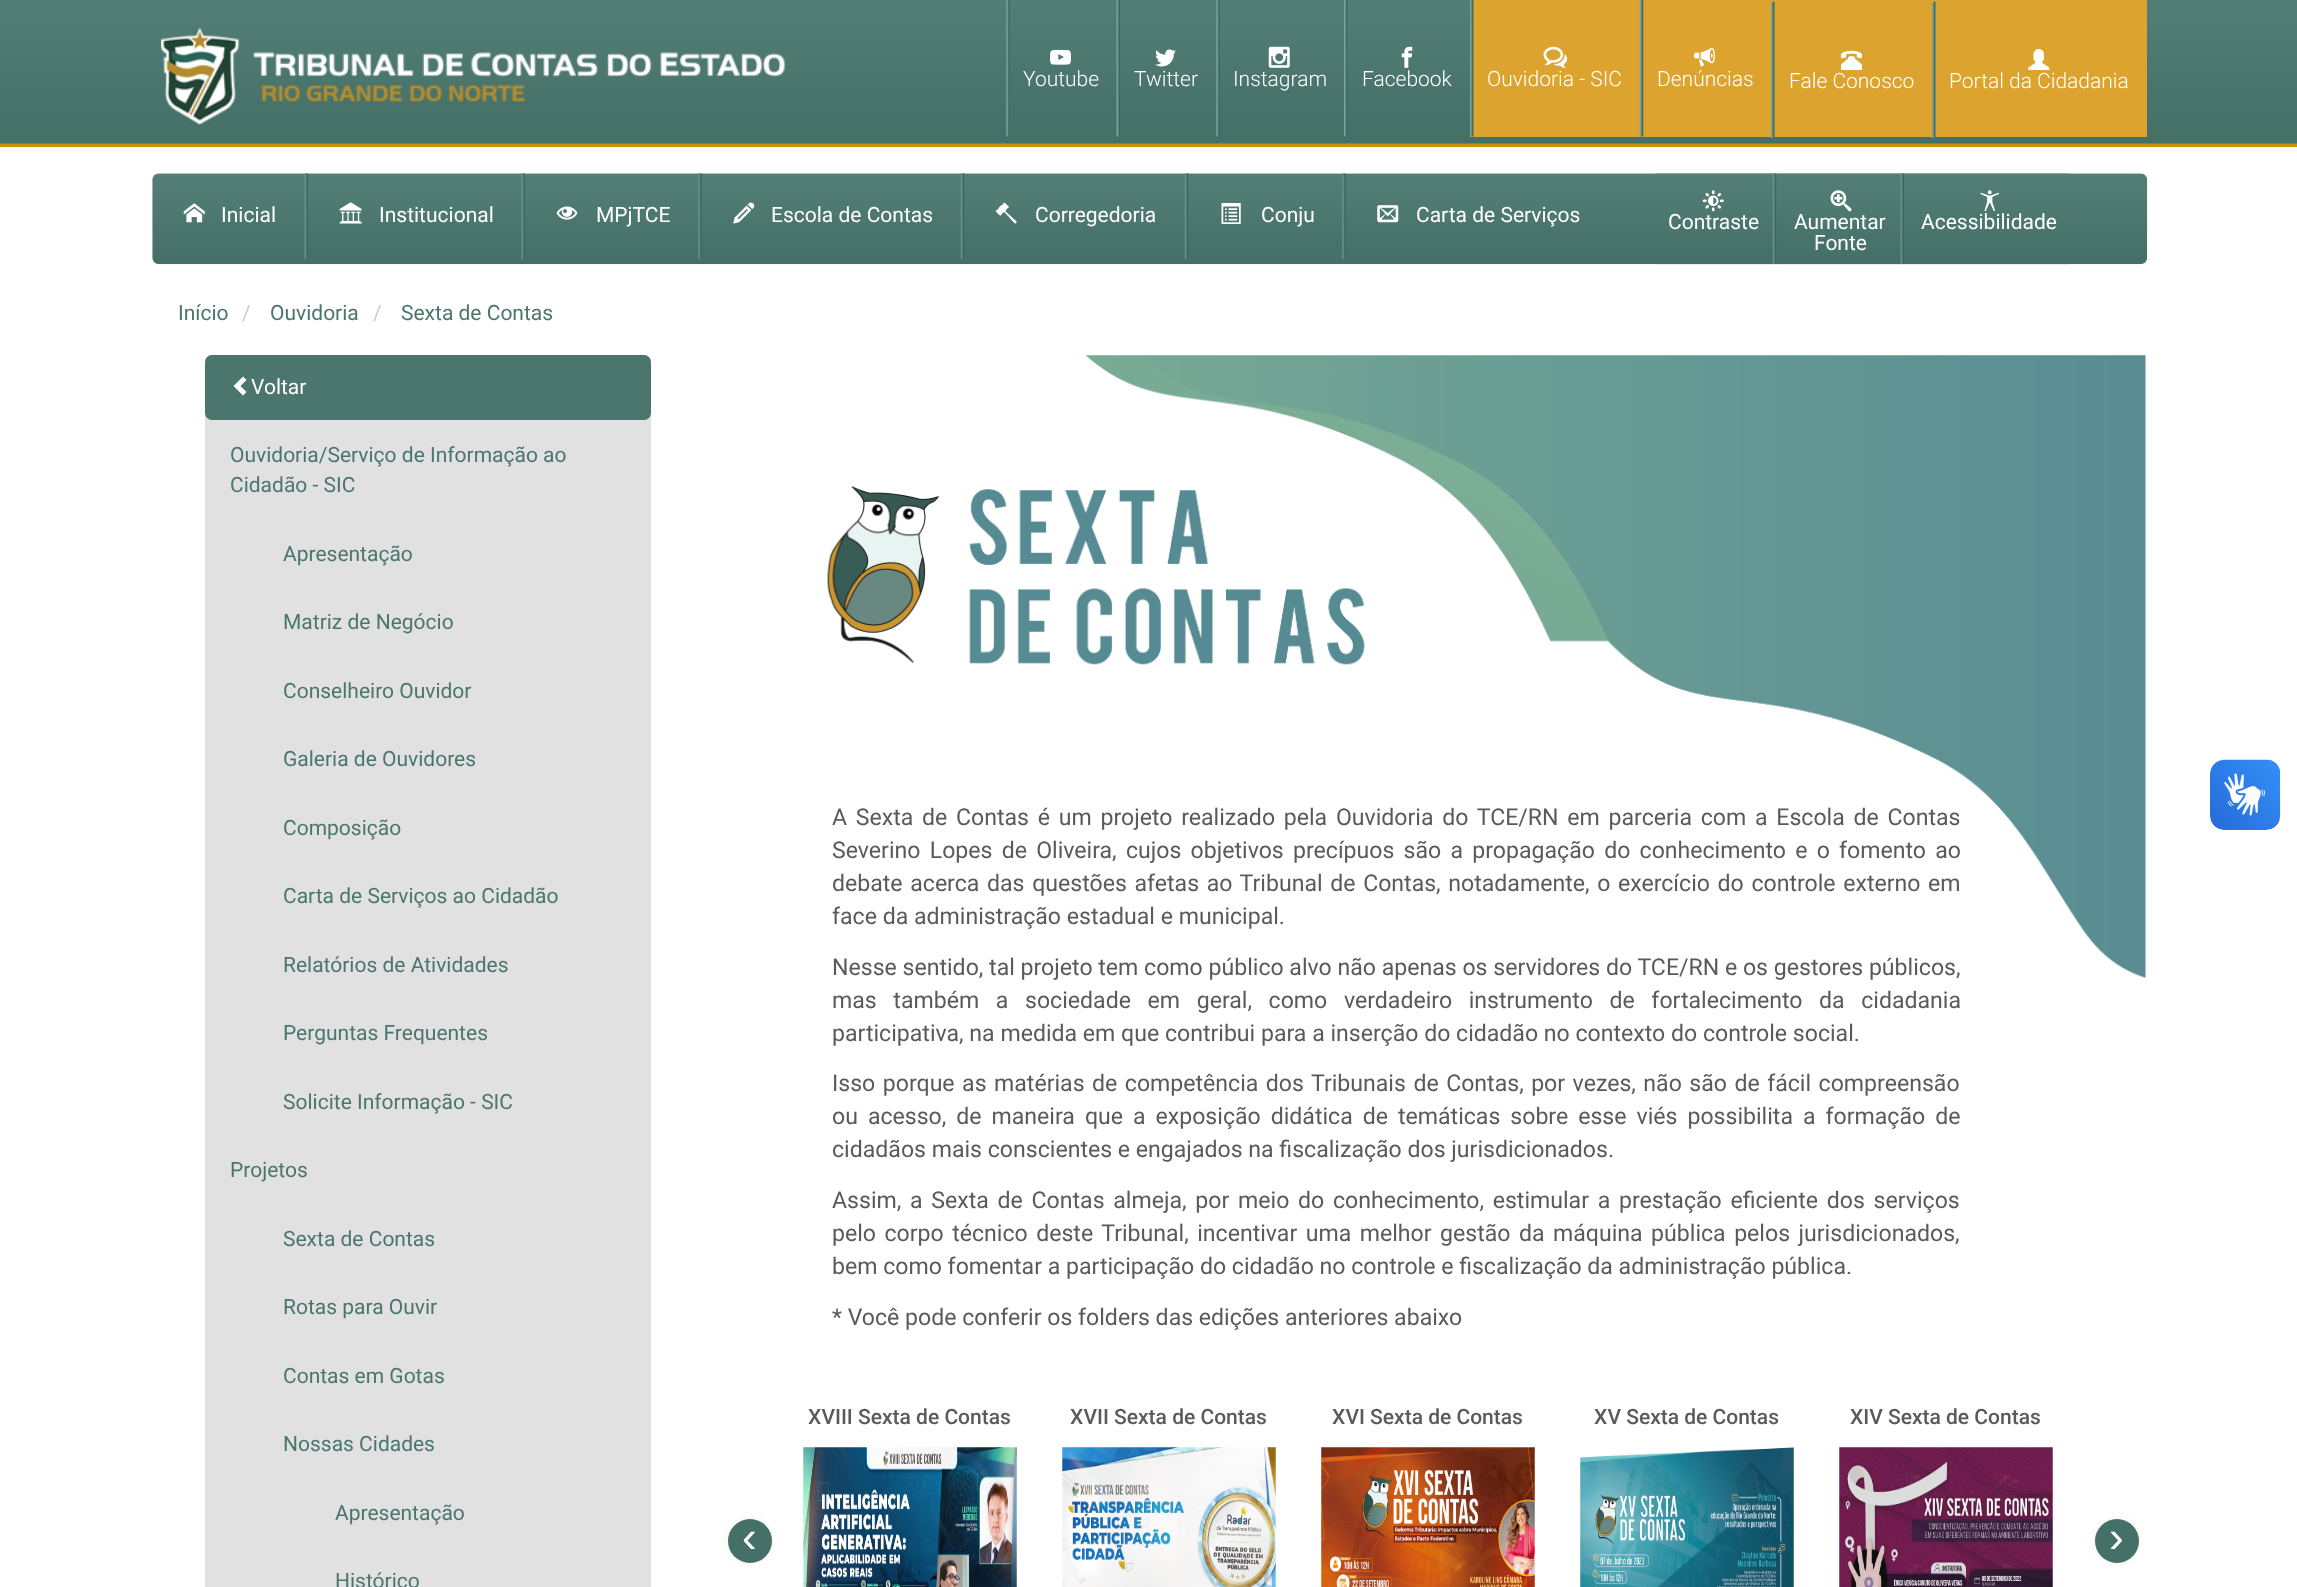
<svg xmlns="http://www.w3.org/2000/svg" width="2297" height="1587" viewBox="0 0 2297 1587">
  <defs>
    <filter id="blur1" x="-50%" y="-200%" width="200%" height="500%"><feGaussianBlur stdDeviation="3.5"/></filter>
  </defs>
  <rect width="100%" height="100%" fill="#ffffff"/>
  <image x="0" y="0" width="2297" height="147" href="img1.png"/>
  <image x="161" y="28" width="624" height="97" href="img2.png"/>
  <image x="1006" y="0" width="4" height="137" href="img3.png"/>
  <image x="1050" y="49" width="21" height="16" href="img4.png"/>
  <text x="1023" y="86" font-family="Roboto" font-size="21" font-weight="300" fill="#ffffff">Youtube</text>
  <image x="1116" y="0" width="4" height="137" href="img5.png"/>
  <image x="1155" y="49" width="21" height="18" href="img6.png"/>
  <text x="1134" y="86" font-family="Roboto" font-size="21" font-weight="300" fill="#ffffff">Twitter</text>
  <image x="1216" y="0" width="4" height="137" href="img3.png"/>
  <image x="1268" y="46" width="22" height="22" href="img7.png"/>
  <text x="1233" y="86" font-family="Roboto" font-size="21" font-weight="300" fill="#ffffff">Instagram</text>
  <image x="1344" y="0" width="4" height="137" href="img8.png"/>
  <image x="1401" y="46" width="12" height="22" href="img9.png"/>
  <text x="1362" y="86" font-family="Roboto" font-size="21" font-weight="300" fill="#ffffff">Facebook</text>
  <rect x="1470" y="0" width="677" height="137" fill="#dca42e"/>
  <image x="1470" y="0" width="4" height="137" href="img10.png"/>
  <image x="1543" y="46" width="25" height="22" href="img11.png"/>
  <text x="1487" y="86" font-family="Roboto" font-size="21" font-weight="300" fill="#ffffff">Ouvidoria - SIC</text>
  <image x="1639" y="0" width="5" height="137" href="img12.png"/>
  <image x="1694" y="48" width="21" height="19" href="img13.png"/>
  <text x="1657" y="86" font-family="Roboto" font-size="21" font-weight="300" fill="#ffffff">Denúncias</text>
  <image x="1771" y="1" width="4" height="138" href="img14.png"/>
  <image x="1841" y="50" width="21" height="20" href="img15.png"/>
  <text x="1789" y="88" font-family="Roboto" font-size="21" font-weight="300" fill="#ffffff">Fale Conosco</text>
  <image x="1932" y="1" width="4" height="138" href="img14.png"/>
  <image x="2028" y="49" width="22" height="21" href="img16.png"/>
  <text x="1949" y="88" font-family="Roboto" font-size="21" font-weight="300" fill="#ffffff">Portal da Cidadania</text>
  <image x="152" y="173" width="1996" height="92" href="img17.png"/>
  <image x="304" y="173" width="4" height="86" href="img18.png"/>
  <image x="183" y="203" width="22" height="20" href="img19.png"/>
  <text x="221" y="222" font-family="Roboto" font-size="21" fill="#ffffff">Inicial</text>
  <image x="521" y="173" width="4" height="86" href="img20.png"/>
  <image x="339" y="202" width="23" height="22" href="img21.png"/>
  <text x="379" y="222" font-family="Roboto" font-size="21" fill="#ffffff">Institucional</text>
  <image x="698" y="173" width="4" height="86" href="img22.png"/>
  <image x="556" y="206" width="22" height="14" href="img23.png"/>
  <text x="596" y="222" font-family="Roboto" font-size="21" fill="#ffffff">MPjTCE</text>
  <image x="960" y="173" width="5" height="86" href="img24.png"/>
  <image x="733" y="202" width="22" height="22" href="img25.png"/>
  <text x="771" y="222" font-family="Roboto" font-size="21" fill="#ffffff">Escola de Contas</text>
  <image x="1184" y="173" width="5" height="86" href="img26.png"/>
  <image x="995" y="202" width="22" height="22" href="img27.png"/>
  <text x="1035" y="222" font-family="Roboto" font-size="21" fill="#ffffff">Corregedoria</text>
  <image x="1342" y="173" width="4" height="86" href="img22.png"/>
  <image x="1221" y="203" width="20" height="21" href="img28.png"/>
  <text x="1261" y="222" font-family="Roboto" font-size="21" fill="#ffffff">Conju</text>
  <image x="1377" y="205" width="22" height="18" href="img29.png"/>
  <text x="1416" y="222" font-family="Roboto" font-size="21" fill="#ffffff">Carta de Serviços</text>
  <image x="1654" y="173" width="418" height="92" href="img30.png"/>
  <image x="1772" y="173" width="5" height="92" href="img31.png"/>
  <image x="1702" y="190" width="22" height="22" href="img32.png"/>
  <text x="1668" y="229" font-family="Roboto" font-size="21" fill="#ffffff">Contraste</text>
  <image x="1900" y="173" width="4" height="92" href="img33.png"/>
  <image x="1830" y="190" width="22" height="22" href="img34.png"/>
  <text x="1794" y="229" font-family="Roboto" font-size="21" fill="#ffffff">Aumentar</text>
  <text x="1814" y="250" font-family="Roboto" font-size="21" fill="#ffffff">Fonte</text>
  <image x="1980" y="190" width="20" height="22" href="img35.png"/>
  <text x="1921" y="229" font-family="Roboto" font-size="21" fill="#ffffff">Acessibilidade</text>
  <text x="178" y="320" font-family="Roboto" font-size="21" fill="#4b766d">Início</text>
  <text x="242" y="320" font-family="Roboto" font-size="21" fill="#cccccc">/</text>
  <text x="270" y="320" font-family="Roboto" font-size="21" fill="#4b766d">Ouvidoria</text>
  <text x="373" y="320" font-family="Roboto" font-size="21" fill="#cccccc">/</text>
  <text x="401" y="320" font-family="Roboto" font-size="21" fill="#4b766d">Sexta de Contas</text>
  <rect x="205" y="355" width="446" height="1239" rx="7" fill="#e1e1e1"/>
  <rect x="205" y="355" width="446" height="65" rx="7" fill="#4b766d"/>
  <path d="M246.5 380L240.5 386L246.5 392L243 395.5L233.5 386L243 376.5Z" fill="#ffffff"/>
  <text x="251" y="394" font-family="Roboto" font-size="21" fill="#ffffff">Voltar</text>
  <text x="230" y="462" font-family="Roboto" font-size="21" fill="#4b766d">Ouvidoria/Serviço de Informação ao</text>
  <text x="230" y="492" font-family="Roboto" font-size="21" fill="#4b766d">Cidadão - SIC</text>
  <text x="283" y="561" font-family="Roboto" font-size="21" fill="#4b766d">Apresentação</text>
  <text x="283" y="629" font-family="Roboto" font-size="21" fill="#4b766d">Matriz de Negócio</text>
  <text x="283" y="698" font-family="Roboto" font-size="21" fill="#4b766d">Conselheiro Ouvidor</text>
  <text x="283" y="766" font-family="Roboto" font-size="21" fill="#4b766d">Galeria de Ouvidores</text>
  <text x="283" y="835" font-family="Roboto" font-size="21" fill="#4b766d">Composição</text>
  <text x="283" y="903" font-family="Roboto" font-size="21" fill="#4b766d">Carta de Serviços ao Cidadão</text>
  <text x="283" y="972" font-family="Roboto" font-size="21" fill="#4b766d">Relatórios de Atividades</text>
  <text x="283" y="1040" font-family="Roboto" font-size="21" fill="#4b766d">Perguntas Frequentes</text>
  <text x="283" y="1109" font-family="Roboto" font-size="21" fill="#4b766d">Solicite Informação - SIC</text>
  <text x="230" y="1177" font-family="Roboto" font-size="21" fill="#4b766d">Projetos</text>
  <text x="283" y="1246" font-family="Roboto" font-size="21" fill="#4b766d">Sexta de Contas</text>
  <text x="283" y="1314" font-family="Roboto" font-size="21" fill="#4b766d">Rotas para Ouvir</text>
  <text x="283" y="1383" font-family="Roboto" font-size="21" fill="#4b766d">Contas em Gotas</text>
  <text x="283" y="1451" font-family="Roboto" font-size="21" fill="#4b766d">Nossas Cidades</text>
  <text x="335" y="1520" font-family="Roboto" font-size="21" fill="#4b766d">Apresentação</text>
  <text x="335" y="1588" font-family="Roboto" font-size="21" fill="#4b766d">Histórico</text>
  <image x="827" y="355" width="1319" height="624" href="img36.png"/>
  <text x="832" y="825" word-spacing="3" font-family="Roboto" font-size="23.1" fill="#5a5a5a">A Sexta de Contas é um projeto realizado pela Ouvidoria do TCE/RN em parceria com a Escola de Contas</text>
  <text x="832" y="858" word-spacing="3.5" font-family="Roboto" font-size="23.1" fill="#5a5a5a">Severino Lopes de Oliveira, cujos objetivos precípuos são a propagação do conhecimento e o fomento ao</text>
  <text x="832" y="891" word-spacing="1.9" font-family="Roboto" font-size="23.1" fill="#5a5a5a">debate acerca das questões afetas ao Tribunal de Contas, notadamente, o exercício do controle externo em</text>
  <text x="832" y="924" font-family="Roboto" font-size="23.1" fill="#5a5a5a">face da administração estadual e municipal.</text>
  <text x="832" y="975" font-family="Roboto" font-size="23.1" fill="#5a5a5a">Nesse sentido, tal projeto tem como público alvo não apenas os servidores do TCE/RN e os gestores públicos,</text>
  <text x="832" y="1008" word-spacing="10.9" font-family="Roboto" font-size="23.1" fill="#5a5a5a">mas também a sociedade em geral, como verdadeiro instrumento de fortalecimento da cidadania</text>
  <text x="832" y="1041" font-family="Roboto" font-size="23.1" fill="#5a5a5a">participativa, na medida em que contribui para a inserção do cidadão no contexto do controle social.</text>
  <text x="832" y="1091" word-spacing="1.75" font-family="Roboto" font-size="23.1" fill="#5a5a5a">Isso porque as matérias de competência dos Tribunais de Contas, por vezes, não são de fácil compreensão</text>
  <text x="832" y="1124" word-spacing="4.25" font-family="Roboto" font-size="23.1" fill="#5a5a5a">ou acesso, de maneira que a exposição didática de temáticas sobre esse viés possibilita a formação de</text>
  <text x="832" y="1157" font-family="Roboto" font-size="23.1" fill="#5a5a5a">cidadãos mais conscientes e engajados na fiscalização dos jurisdicionados.</text>
  <text x="832" y="1208" word-spacing="3" font-family="Roboto" font-size="23.1" fill="#5a5a5a">Assim, a Sexta de Contas almeja, por meio do conhecimento, estimular a prestação eficiente dos serviços</text>
  <text x="832" y="1241" word-spacing="2.75" font-family="Roboto" font-size="23.1" fill="#5a5a5a">pelo corpo técnico deste Tribunal, incentivar uma melhor gestão da máquina pública pelos jurisdicionados,</text>
  <text x="832" y="1274" font-family="Roboto" font-size="23.1" fill="#5a5a5a">bem como fomentar a participação do cidadão no controle e fiscalização da administração pública.</text>
  <text x="832" y="1325" font-family="Roboto" font-size="23.1" fill="#5a5a5a">* Você pode conferir os folders das edições anteriores abaixo</text>
  <text x="808" y="1424" font-family="Roboto" font-size="21" font-weight="500" fill="#5a5a5a">XVIII Sexta de Contas</text>
  <image x="803" y="1447" width="214" height="140" href="img37.png"/>
  <text x="1070" y="1424" font-family="Roboto" font-size="21" font-weight="500" fill="#5a5a5a">XVII Sexta de Contas</text>
  <image x="1062" y="1447" width="214" height="140" href="img38.png"/>
  <text x="1332" y="1424" font-family="Roboto" font-size="21" font-weight="500" fill="#5a5a5a">XVI Sexta de Contas</text>
  <image x="1321" y="1447" width="214" height="140" href="img39.png"/>
  <text x="1594" y="1424" font-family="Roboto" font-size="21" font-weight="500" fill="#5a5a5a">XV Sexta de Contas</text>
  <image x="1580" y="1447" width="214" height="140" href="img40.png"/>
  <text x="1850" y="1424" font-family="Roboto" font-size="21" font-weight="500" fill="#5a5a5a">XIV Sexta de Contas</text>
  <image x="1839" y="1447" width="214" height="140" href="img41.png"/>
  <rect x="728" y="1519" width="44" height="44" rx="22" fill="#f0efe7" filter="url(#blur1)"/>
  <circle cx="750" cy="1541" r="22" fill="#447068"/>
  <text x="742" y="1552" font-family="Liberation Sans" font-size="44" fill="#ffffff">‹</text>
  <rect x="2095" y="1519" width="44" height="44" rx="22" fill="#f0efe7" filter="url(#blur1)"/>
  <circle cx="2117" cy="1541" r="22" fill="#447068"/>
  <text x="2109" y="1552" font-family="Liberation Sans" font-size="44" fill="#ffffff">›</text>
  <image x="2210" y="759" width="71" height="71" href="img42.png"/>
  <image x="2210" y="760" width="70" height="70" href="img43.png"/>
</svg>
